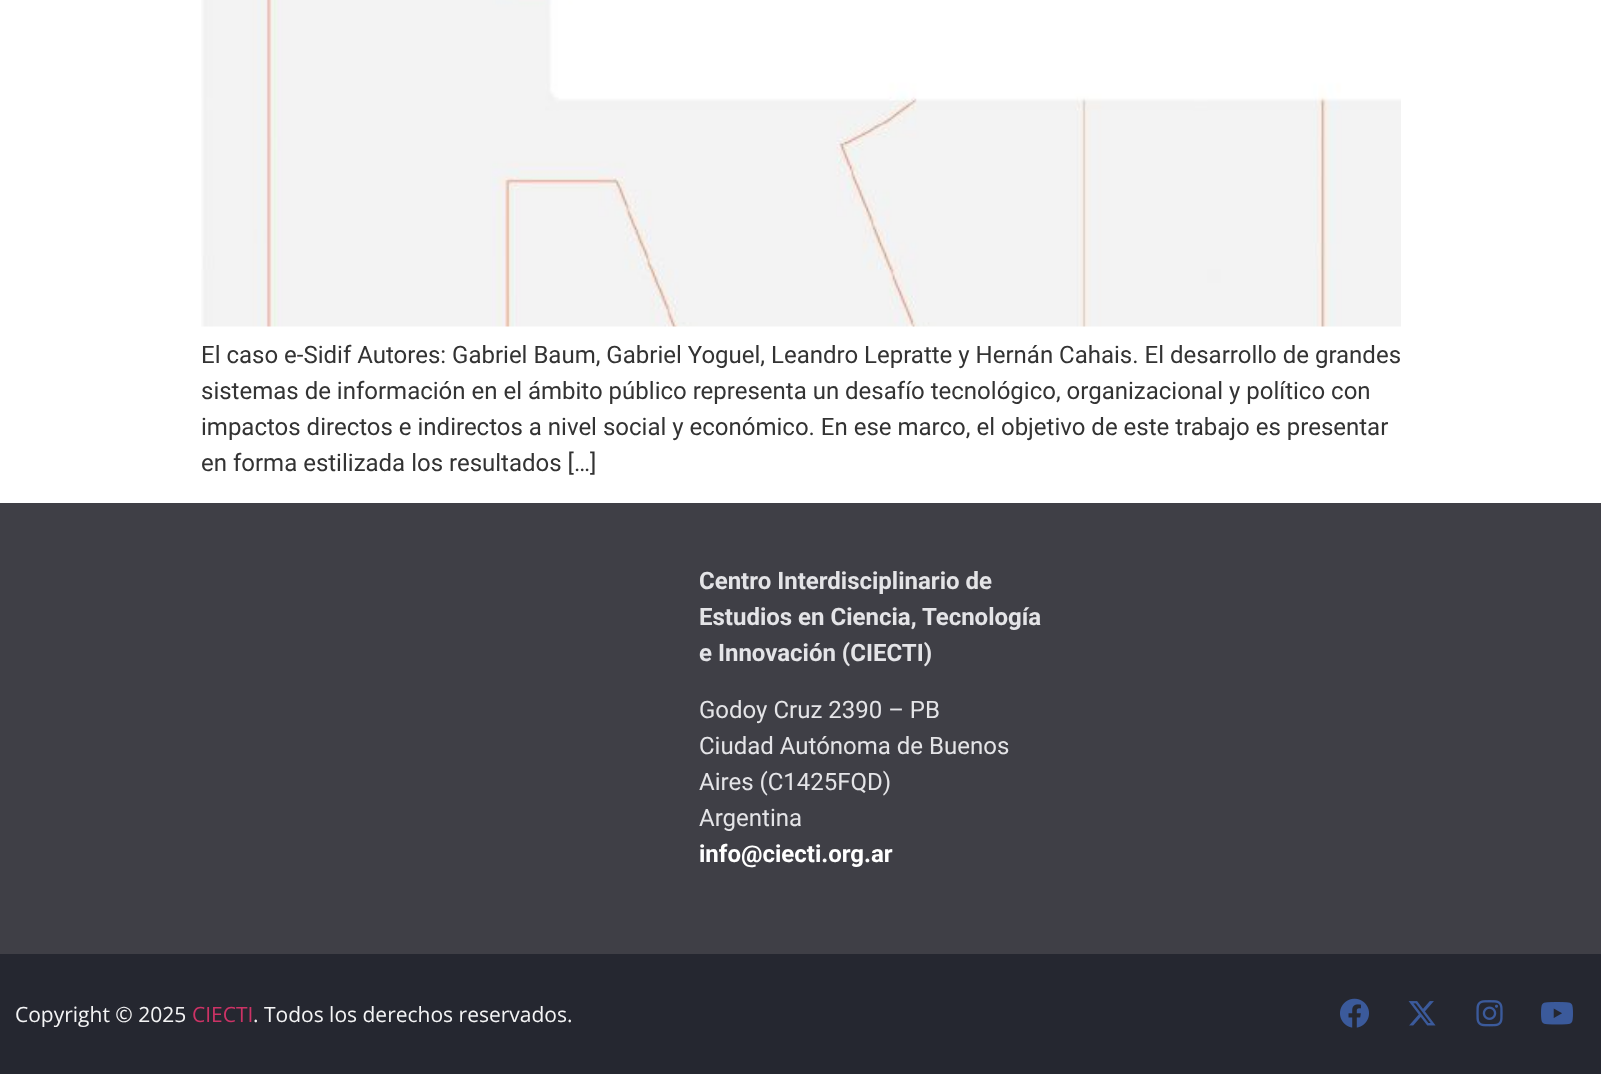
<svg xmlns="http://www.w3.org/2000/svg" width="1601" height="1074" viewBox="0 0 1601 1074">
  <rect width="100%" height="100%" fill="#ffffff"/>
  <image x="201" y="0" width="1200" height="327" href="img1.png"/>
  <text x="201" y="363" font-family="Roboto" font-size="24" fill="#333333">El caso e-Sidif Autores: Gabriel Baum, Gabriel Yoguel, Leandro Lepratte y Hernán Cahais. El desarrollo de grandes</text>
  <text x="201" y="399" font-family="Roboto" font-size="24" fill="#333333">sistemas de información en el ámbito público representa un desafío tecnológico, organizacional y político con</text>
  <text x="201" y="435" font-family="Roboto" font-size="24" fill="#333333">impactos directos e indirectos a nivel social y económico. En ese marco, el objetivo de este trabajo es presentar</text>
  <text x="201" y="471" font-family="Roboto" font-size="24" fill="#333333">en forma estilizada los resultados […]</text>
  <rect x="0" y="503" width="1601" height="451" fill="#3f3f46"/>
  <text x="699" y="589" font-family="Roboto" font-size="24" font-weight="bold" fill="#e4e4e7">Centro Interdisciplinario de</text>
  <text x="699" y="625" font-family="Roboto" font-size="24" font-weight="bold" fill="#e4e4e7">Estudios en Ciencia, Tecnología</text>
  <text x="699" y="661" font-family="Roboto" font-size="24" font-weight="bold" fill="#e4e4e7">e Innovación (CIECTI)</text>
  <text x="699" y="718" font-family="Roboto" font-size="24" fill="#e4e4e7">Godoy Cruz 2390 – PB</text>
  <text x="699" y="754" font-family="Roboto" font-size="24" fill="#e4e4e7">Ciudad Autónoma de Buenos</text>
  <text x="699" y="790" font-family="Roboto" font-size="24" fill="#e4e4e7">Aires (C1425FQD)</text>
  <text x="699" y="826" font-family="Roboto" font-size="24" fill="#e4e4e7">Argentina</text>
  <text x="699" y="862" font-family="Roboto" font-size="24" font-weight="bold" fill="#ffffff">info@ciecti.org.ar</text>
  <rect x="0" y="954" width="1601" height="120" fill="#252730"/>
  <text x="15" y="1022" font-family="Open Sans" font-size="21" fill="#f4f4f5">Copyright © 2025</text>
  <text x="192" y="1022" font-family="Open Sans" font-size="21" fill="#cc3366">CIECTI</text>
  <text x="253" y="1022" font-family="Open Sans" font-size="21" fill="#f4f4f5">. Todos los derechos reservados.</text>
  <image x="1340" y="998" width="29" height="30" href="img2.png"/>
  <image x="1408" y="1001" width="28" height="25" href="img3.png"/>
  <image x="1476" y="1000" width="27" height="27" href="img4.png"/>
  <image x="1541" y="1002" width="32" height="23" href="img5.png"/>
</svg>
